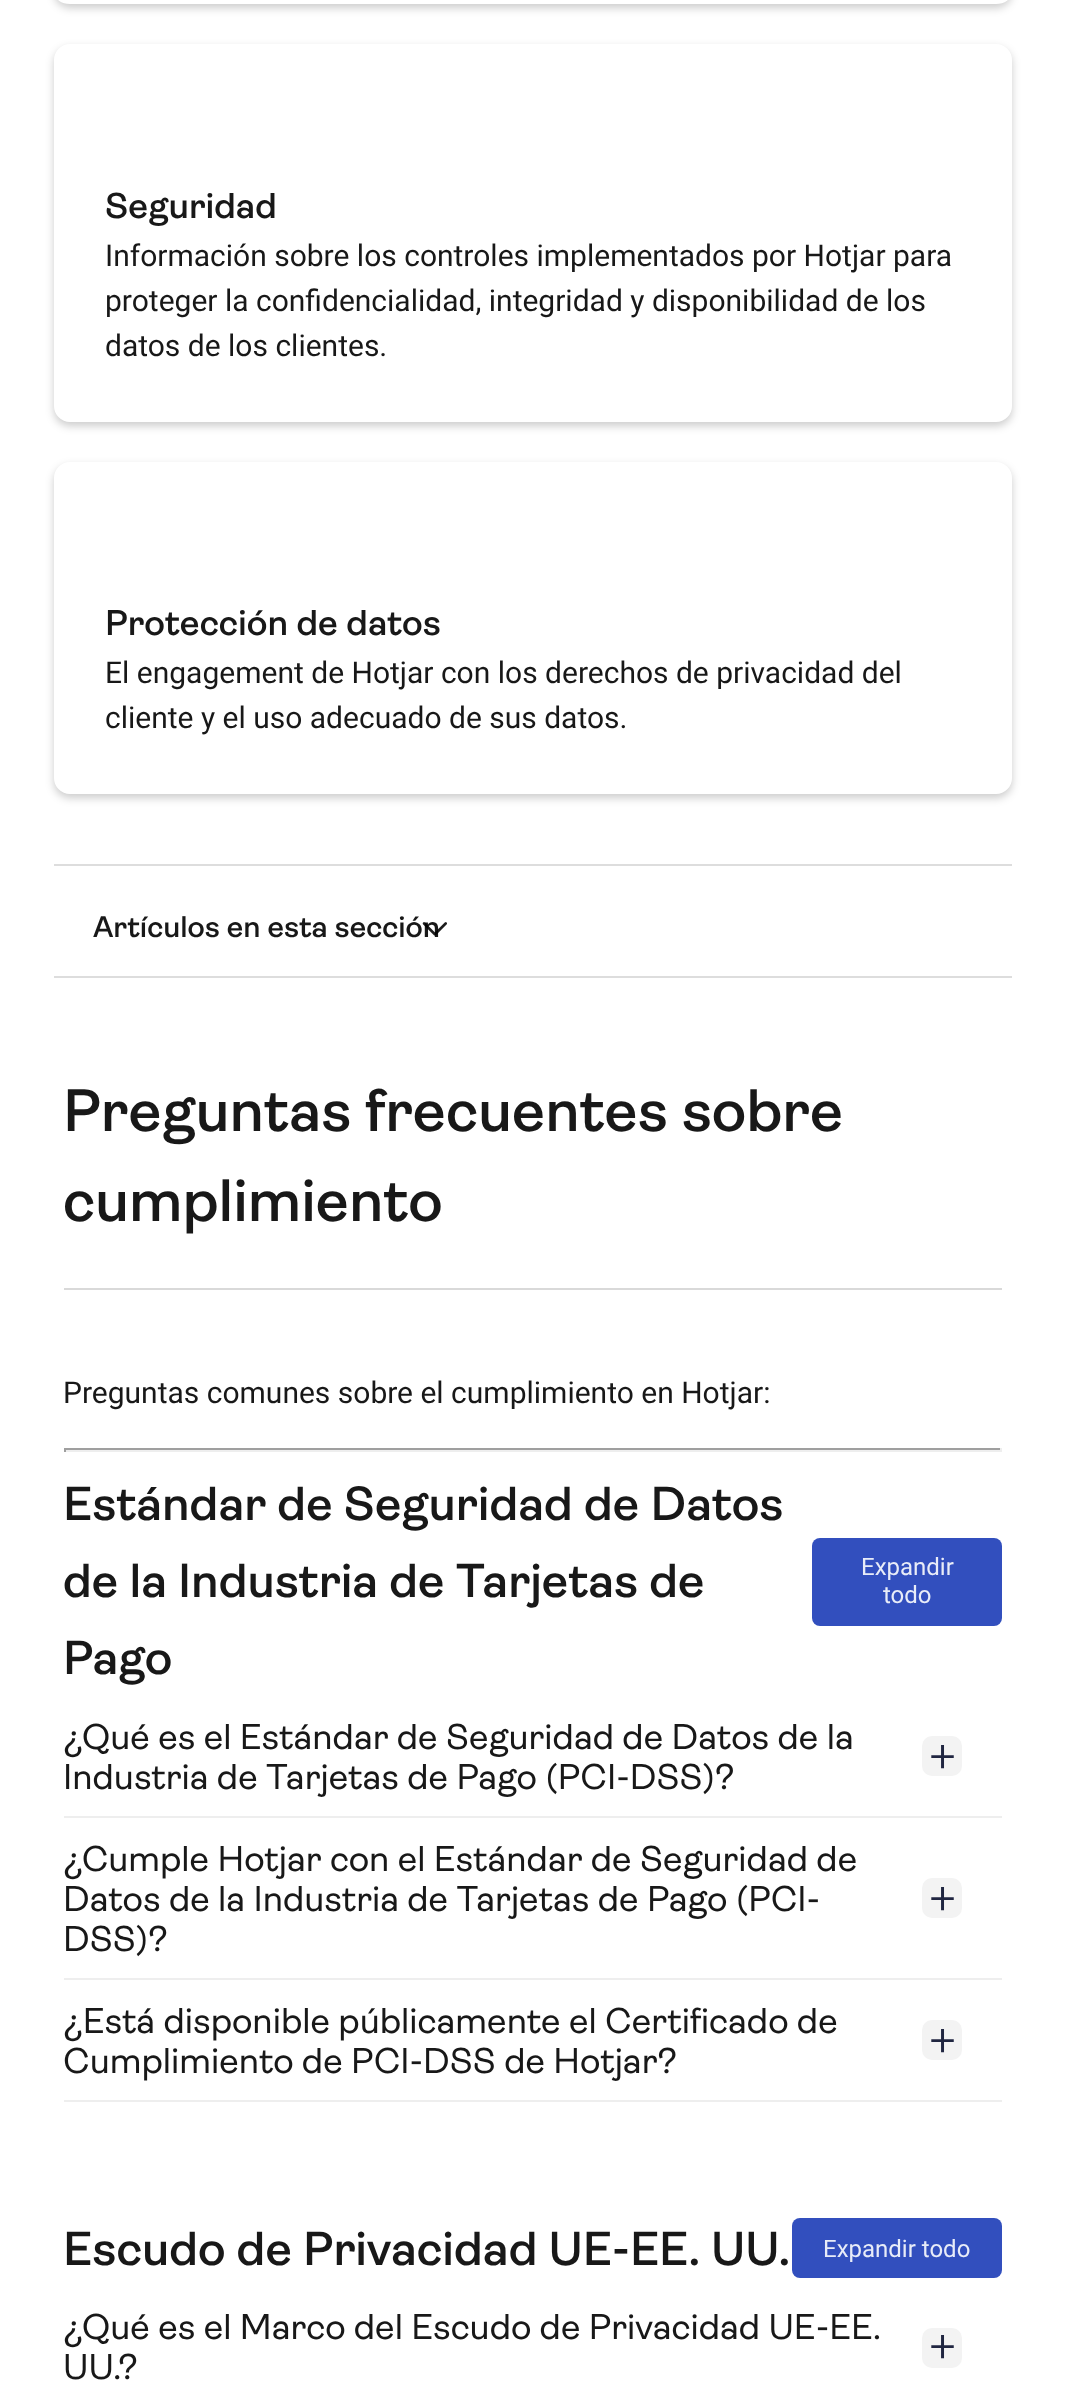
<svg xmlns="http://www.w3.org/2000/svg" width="1066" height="2387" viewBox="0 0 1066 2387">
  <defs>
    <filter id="blur1" x="-50%" y="-200%" width="200%" height="500%"><feGaussianBlur stdDeviation="4"/></filter>
  </defs>
  <rect width="100%" height="100%" fill="#ffffff"/>
  <rect x="54" y="-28" width="958" height="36" rx="16" fill="#000000" fill-opacity="0.2" filter="url(#blur1)"/>
  <rect x="56" y="-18" width="954" height="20" rx="14" fill="none" stroke="#ffffff" stroke-width="4"/>
  <rect x="54" y="48" width="958" height="378" rx="16" fill="#000000" fill-opacity="0.2" filter="url(#blur1)"/>
  <rect x="56" y="46" width="954" height="374" rx="14" fill="#ffffff" stroke="#ffffff" stroke-width="4"/>
  <text x="105" y="218" font-family="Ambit" font-size="36" font-weight="600" fill="#181818">Seguridad</text>
  <text x="105" y="266" font-family="Roboto" font-size="30" fill="#181818">Información sobre los controles implementados por Hotjar para</text>
  <text x="105" y="311" font-family="Roboto" font-size="30" fill="#181818">proteger la confidencialidad, integridad y disponibilidad de los</text>
  <text x="105" y="356" font-family="Roboto" font-size="30" fill="#181818">datos de los clientes.</text>
  <rect x="54" y="466" width="958" height="332" rx="16" fill="#000000" fill-opacity="0.2" filter="url(#blur1)"/>
  <rect x="56" y="464" width="954" height="328" rx="14" fill="#ffffff" stroke="#ffffff" stroke-width="4"/>
  <text x="105" y="635" font-family="Ambit" font-size="36" font-weight="600" fill="#181818">Protección de datos</text>
  <text x="105" y="683" font-family="Roboto" font-size="30" fill="#181818">El engagement de Hotjar con los derechos de privacidad del</text>
  <text x="105" y="728" font-family="Roboto" font-size="30" fill="#181818">cliente y el uso adecuado de sus datos.</text>
  <rect x="54" y="864" width="958" height="2" fill="#dddddd"/>
  <rect x="54" y="976" width="958" height="2" fill="#dddddd"/>
  <text x="93" y="937" font-family="Ambit" font-size="30" font-weight="600" fill="#181818">Artículos en esta sección</text>
  <image x="422" y="922" width="25" height="14" href="img1.png"/>
  <rect x="64" y="1288" width="938" height="2" fill="#d9d9d9"/>
  <text x="63" y="1131" font-family="Ambit" font-size="60" font-weight="600" fill="#181818">Preguntas frecuentes sobre</text>
  <text x="63" y="1221" font-family="Ambit" font-size="60" font-weight="600" fill="#181818">cumplimiento</text>
  <text x="63" y="1403" font-family="Roboto" font-size="30" fill="#181818">Preguntas comunes sobre el cumplimiento en Hotjar:</text>
  <rect x="64" y="1448" width="938" height="2" fill="#9f9f9f"/>
  <rect x="1000" y="1448" width="2" height="4" fill="#eeeeee"/>
  <rect x="64" y="1450" width="938" height="2" fill="#eeeeee"/>
  <rect x="64" y="1448" width="2" height="4" fill="#9f9f9f"/>
  <text x="63" y="1520" font-family="Ambit" font-size="48" font-weight="600" fill="#181818">Estándar de Seguridad de Datos</text>
  <text x="63" y="1597" font-family="Ambit" font-size="48" font-weight="600" fill="#181818">de la Industria de Tarjetas de</text>
  <rect x="812" y="1538" width="190" height="88" rx="8" fill="#324fbe"/>
  <text x="861" y="1575" font-family="Roboto" font-size="24" fill="#e8ecf8">Expandir</text>
  <text x="883" y="1603" font-family="Roboto" font-size="24" fill="#e8ecf8">todo</text>
  <text x="63" y="1674" font-family="Ambit" font-size="48" font-weight="600" fill="#181818">Pago</text>
  <text x="63" y="1749" font-family="Ambit" font-size="36" fill="#181818">¿Qué es el Estándar de Seguridad de Datos de la</text>
  <text x="63" y="1789" font-family="Ambit" font-size="36" fill="#181818">Industria de Tarjetas de Pago (PCI-DSS)?</text>
  <rect x="922" y="1736" width="40" height="40" rx="10" fill="#f3f3f3"/>
  <text x="929" y="1773" font-family="Ambit" font-size="56" font-weight="300" fill="#202641">+</text>
  <rect x="64" y="1816" width="938" height="2" fill="#eeeeee"/>
  <text x="63" y="1871" font-family="Ambit" font-size="36" fill="#181818">¿Cumple Hotjar con el Estándar de Seguridad de</text>
  <text x="63" y="1911" font-family="Ambit" font-size="36" fill="#181818">Datos de la Industria de Tarjetas de Pago (PCI-</text>
  <text x="63" y="1951" font-family="Ambit" font-size="36" fill="#181818">DSS)?</text>
  <rect x="922" y="1878" width="40" height="40" rx="10" fill="#f3f3f3"/>
  <text x="929" y="1915" font-family="Ambit" font-size="56" font-weight="300" fill="#202641">+</text>
  <rect x="64" y="1978" width="938" height="2" fill="#eeeeee"/>
  <text x="63" y="2033" font-family="Ambit" font-size="36" fill="#181818">¿Está disponible públicamente el Certificado de</text>
  <text x="63" y="2073" font-family="Ambit" font-size="36" fill="#181818">Cumplimiento de PCI-DSS de Hotjar?</text>
  <rect x="922" y="2020" width="40" height="40" rx="10" fill="#f3f3f3"/>
  <text x="929" y="2057" font-family="Ambit" font-size="56" font-weight="300" fill="#202641">+</text>
  <rect x="64" y="2100" width="938" height="2" fill="#eeeeee"/>
  <text x="63" y="2265" font-family="Ambit" font-size="48" font-weight="600" fill="#181818">Escudo de Privacidad UE-EE. UU.</text>
  <rect x="792" y="2218" width="210" height="60" rx="8" fill="#324fbe"/>
  <text x="823" y="2257" font-family="Roboto" font-size="24" fill="#e8ecf8">Expandir todo</text>
  <text x="63" y="2339" font-family="Ambit" font-size="36" fill="#181818">¿Qué es el Marco del Escudo de Privacidad UE-EE.</text>
  <text x="63" y="2379" font-family="Ambit" font-size="36" fill="#181818">UU.?</text>
  <rect x="922" y="2328" width="40" height="40" rx="10" fill="#f3f3f3"/>
  <text x="929" y="2363" font-family="Ambit" font-size="56" font-weight="300" fill="#202641">+</text>
</svg>
